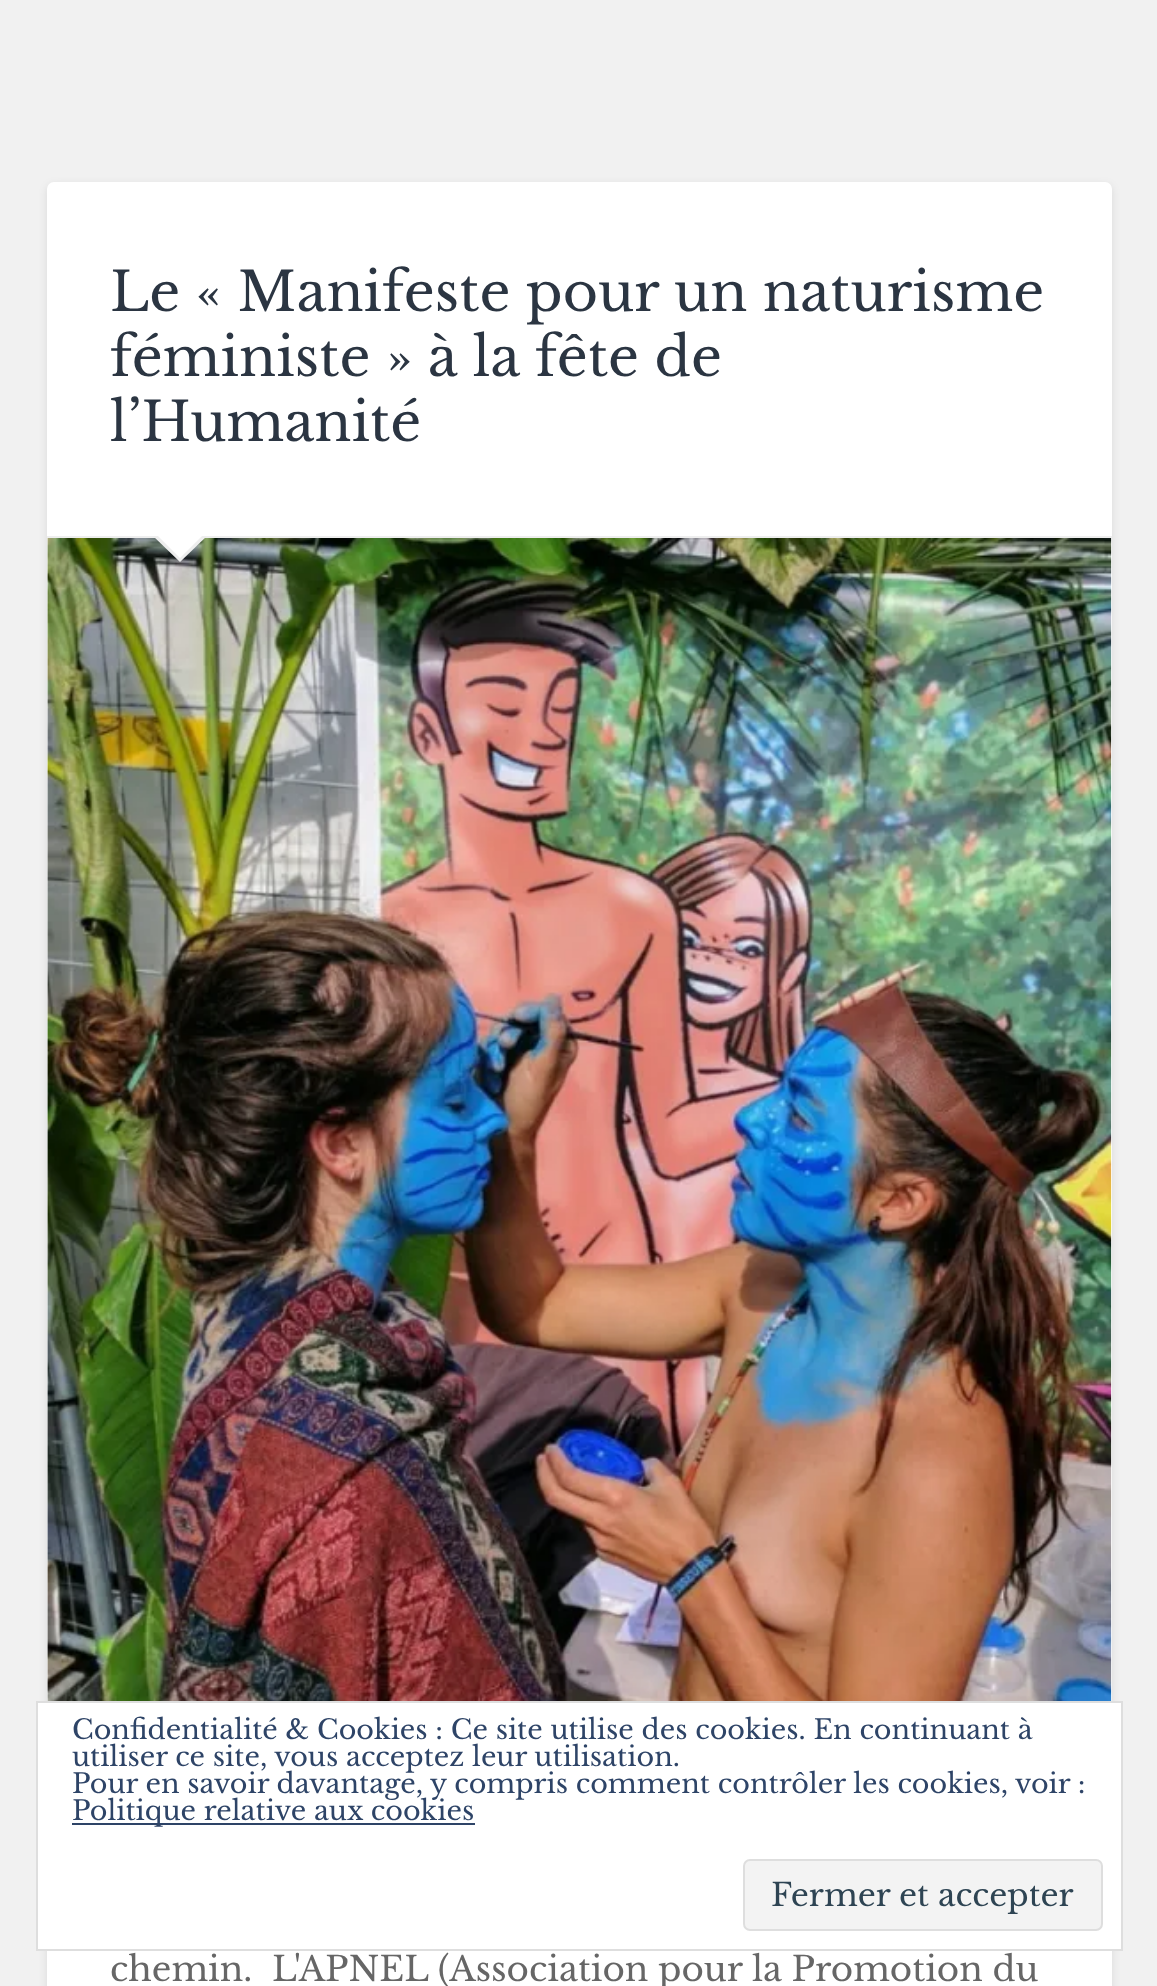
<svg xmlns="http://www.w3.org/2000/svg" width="1157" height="1986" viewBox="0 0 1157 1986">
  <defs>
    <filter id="blur1" x="-50%" y="-200%" width="200%" height="500%"><feGaussianBlur stdDeviation="4.5"/></filter>
  </defs>
  <rect width="100%" height="100%" fill="#f1f1f1"/>
  <rect x="47" y="185" width="1065" height="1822" rx="7" fill="#000000" fill-opacity="0.1" filter="url(#blur1)"/>
  <rect x="47" y="182" width="1065" height="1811" rx="7" fill="#ffffff"/>
  <rect x="47" y="536" width="1065" height="2" fill="#eeeeee"/>
  <text x="110" y="311" font-family="Libre Baskerville" font-size="54" fill="#2b3542">Le « Manifeste pour un naturisme</text>
  <text x="110" y="376" font-family="Libre Baskerville" font-size="54" fill="#2b3542">féministe » à la fête de</text>
  <text x="110" y="441" font-family="Libre Baskerville" font-size="54" fill="#2b3542">l’Humanité</text>
  <image x="47" y="538" width="1065" height="1163" href="img1.png"/>
  <path d="M153 536H207L180 562Z" fill="#eeeeee"/>
  <path d="M155 533H205L180 558Z" fill="#ffffff"/>
  <text x="110" y="1981" font-family="Libre Baskerville" font-size="34.2" fill="#666666" xml:space="preserve">chemin.  L'APNEL (Association pour la Promotion du</text>
  <rect x="37" y="1702" width="1085" height="248" fill="#ffffff" stroke="#dedede" stroke-width="2"/>
  <text x="72" y="1739" font-family="Libre Baskerville" font-size="27" fill="#2e4467">Confidentialité &amp; Cookies : Ce site utilise des cookies. En continuant à</text>
  <text x="72" y="1766" font-family="Libre Baskerville" font-size="27" fill="#2e4467">utiliser ce site, vous acceptez leur utilisation.</text>
  <text x="72" y="1793" font-family="Libre Baskerville" font-size="27" fill="#2e4467">Pour en savoir davantage, y compris comment contrôler les cookies, voir :</text>
  <rect x="72" y="1823" width="403" height="2" fill="#2e4467"/>
  <text x="72" y="1820" font-family="Libre Baskerville" font-size="27" fill="#2e4467">Politique relative aux cookies</text>
  <rect x="744" y="1860" width="358" height="70" rx="6" fill="#f3f3f3" stroke="#dedede" stroke-width="2"/>
  <text x="771" y="1906" font-family="Libre Baskerville" font-size="31.5" fill="#2e4453">Fermer et accepter</text>
</svg>
